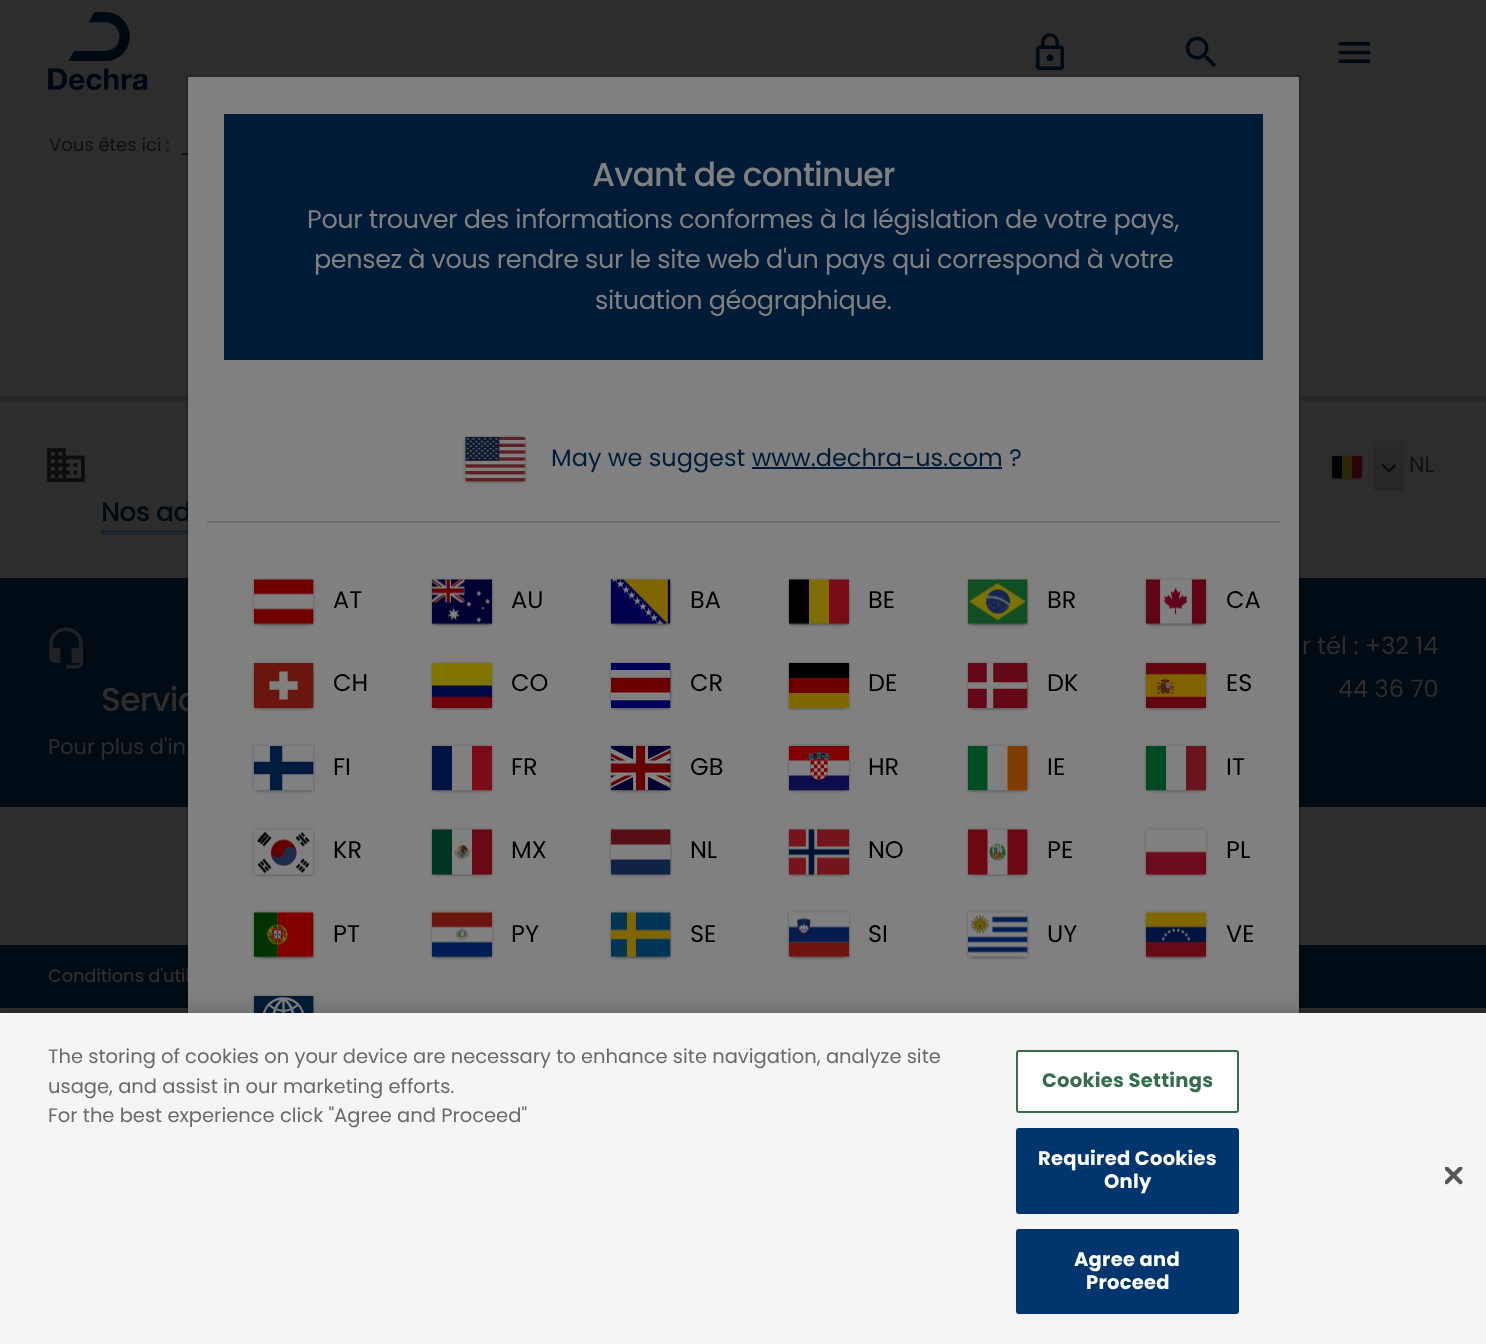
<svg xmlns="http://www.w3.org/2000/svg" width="1486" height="1344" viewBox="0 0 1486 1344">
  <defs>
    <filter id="blur1" x="-50%" y="-200%" width="200%" height="500%"><feGaussianBlur stdDeviation="2"/></filter>
    <linearGradient id="g1" gradientUnits="userSpaceOnUse" x1="1389" y1="441" x2="1389" y2="491"><stop offset="0" stop-color="#2a2a2a"/><stop offset="1" stop-color="#262626"/></linearGradient>
    <filter id="blur2" x="-50%" y="-200%" width="200%" height="500%"><feGaussianBlur stdDeviation="13.5"/></filter>
  </defs>
  <rect width="100%" height="100%" fill="#2d2d2d"/>
  <image x="48" y="12" width="100" height="78" href="img1.png"/>
  <image x="1035" y="33" width="30" height="37" href="img2.png"/>
  <image x="1185" y="36" width="32" height="32" href="img3.png"/>
  <image x="1338" y="42" width="33" height="21" href="img4.png"/>
  <text x="49" y="151" font-family="Poppins" font-size="18" fill="#101010">Vous êtes ici :</text>
  <rect x="182" y="153" width="6" height="2" fill="#101010"/>
  <rect x="0" y="396" width="1486" height="5" fill="#272727"/>
  <rect x="1335" y="461" width="24" height="16" fill="#000000" filter="url(#blur1)"/>
  <image x="1330" y="454" width="34" height="26" href="img5.png"/>
  <path d="M1374 441H1401C1402.5 441 1404 442.5 1404 444V488C1404 489.5 1402.5 491 1401 491H1374Z" fill="url(#g1)"/>
  <image x="1381" y="463" width="16" height="10" href="img6.png"/>
  <text x="1409" y="472" font-family="Poppins" font-size="22" fill="#101010">NL</text>
  <image x="47" y="448" width="38" height="34" href="img7.png"/>
  <text x="101" y="521" font-family="Poppins" font-size="26.5" font-weight="500" letter-spacing="-0.5" fill="#000a13">Nos ad</text>
  <rect x="101" y="530" width="87" height="5" fill="#1d262d"/>
  <rect x="0" y="578" width="1486" height="229" fill="#000b14"/>
  <text x="1302" y="654" font-family="Poppins" font-size="24" fill="#2d2d2d">r tél : +32 14</text>
  <text x="1338" y="697" font-family="Poppins" font-size="24" fill="#2d2d2d">44 36 70</text>
  <image x="49" y="627" width="34" height="42" href="img8.png"/>
  <text x="101" y="711" font-family="Poppins" font-size="33" font-weight="500" letter-spacing="-0.8" fill="#2d2d2d">Servic</text>
  <text x="48" y="754" font-family="Poppins" font-size="21" fill="#2d2d2d">Pour plus d'in</text>
  <rect x="0" y="945" width="1486" height="63" fill="#000b14"/>
  <text x="48" y="982" font-family="Poppins" font-size="18" font-weight="500" letter-spacing="-0.25" fill="#2d2d2d">Conditions d'util</text>
  <path d="M189.5 77H1297.5C1298.5 77 1299 77.5 1299 78.5V1344H188V78.5C188 77.5 188.5 77 189.5 77Z" fill="#808080"/>
  <rect x="187" y="76" width="1113" height="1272" rx="2" fill="none" stroke="#000000" stroke-opacity="0.15" stroke-width="2"/>
  <rect x="224" y="114" width="1039" height="246" fill="#001b37"/>
  <text x="592" y="186" font-family="Poppins" font-size="33" font-weight="500" letter-spacing="-0.8" fill="#808080">Avant de continuer</text>
  <text x="307" y="228" font-family="Poppins" font-size="25.5" letter-spacing="-0.38" fill="#808080">Pour trouver des informations conformes à la législation de votre pays,</text>
  <text x="314" y="268" font-family="Poppins" font-size="25.5" letter-spacing="-0.38" fill="#808080">pensez à vous rendre sur le site web d'un pays qui correspond à votre</text>
  <text x="595" y="309" font-family="Poppins" font-size="25.5" letter-spacing="-0.38" fill="#808080">situation géographique.</text>
  <rect x="468" y="441" width="54" height="39" fill="#000000" filter="url(#blur1)"/>
  <image x="463" y="435" width="64" height="48" href="img9.png"/>
  <text x="551" y="466" font-family="Poppins" font-size="24" fill="#001b37">May we suggest www.dechra-us.com ?</text>
  <rect x="752" y="467" width="250" height="2" fill="#001b37"/>
  <rect x="207" y="521" width="1073" height="2" fill="#6d6d6d"/>
  <rect x="257" y="584" width="54" height="39" fill="#000000" filter="url(#blur1)"/>
  <image x="252" y="577" width="63" height="49" href="img10.png"/>
  <text x="333" y="608" font-family="Poppins" font-size="24" fill="#000000">AT</text>
  <rect x="435" y="584" width="54" height="39" fill="#000000" filter="url(#blur1)"/>
  <image x="430" y="577" width="64" height="49" href="img11.png"/>
  <text x="511" y="608" font-family="Poppins" font-size="24" fill="#000000">AU</text>
  <rect x="614" y="584" width="54" height="39" fill="#000000" filter="url(#blur1)"/>
  <image x="609" y="577" width="63" height="49" href="img12.png"/>
  <text x="690" y="608" font-family="Poppins" font-size="24" fill="#000000">BA</text>
  <rect x="792" y="584" width="54" height="39" fill="#000000" filter="url(#blur1)"/>
  <image x="787" y="577" width="64" height="49" href="img13.png"/>
  <text x="868" y="608" font-family="Poppins" font-size="24" fill="#000000">BE</text>
  <rect x="971" y="584" width="54" height="39" fill="#000000" filter="url(#blur1)"/>
  <image x="966" y="577" width="63" height="49" href="img14.png"/>
  <text x="1047" y="608" font-family="Poppins" font-size="24" fill="#000000">BR</text>
  <rect x="1149" y="584" width="54" height="39" fill="#000000" filter="url(#blur1)"/>
  <image x="1144" y="577" width="64" height="49" href="img15.png"/>
  <text x="1226" y="608" font-family="Poppins" font-size="24" fill="#000000">CA</text>
  <rect x="257" y="668" width="54" height="39" fill="#000000" filter="url(#blur1)"/>
  <image x="252" y="661" width="63" height="49" href="img16.png"/>
  <text x="333" y="691" font-family="Poppins" font-size="24" fill="#000000">CH</text>
  <rect x="435" y="668" width="54" height="39" fill="#000000" filter="url(#blur1)"/>
  <image x="430" y="661" width="64" height="49" href="img17.png"/>
  <text x="511" y="691" font-family="Poppins" font-size="24" fill="#000000">CO</text>
  <rect x="614" y="668" width="54" height="39" fill="#000000" filter="url(#blur1)"/>
  <image x="609" y="661" width="64" height="49" href="img18.png"/>
  <text x="690" y="691" font-family="Poppins" font-size="24" fill="#000000">CR</text>
  <rect x="792" y="668" width="54" height="39" fill="#000000" filter="url(#blur1)"/>
  <image x="787" y="661" width="64" height="49" href="img19.png"/>
  <text x="868" y="691" font-family="Poppins" font-size="24" fill="#000000">DE</text>
  <rect x="971" y="668" width="54" height="39" fill="#000000" filter="url(#blur1)"/>
  <image x="966" y="661" width="63" height="49" href="img20.png"/>
  <text x="1047" y="691" font-family="Poppins" font-size="24" fill="#000000">DK</text>
  <rect x="1149" y="668" width="54" height="39" fill="#000000" filter="url(#blur1)"/>
  <image x="1144" y="661" width="64" height="49" href="img21.png"/>
  <text x="1226" y="691" font-family="Poppins" font-size="24" fill="#000000">ES</text>
  <rect x="257" y="750" width="54" height="39" fill="#000000" filter="url(#blur1)"/>
  <image x="252" y="744" width="63" height="48" href="img22.png"/>
  <text x="333" y="775" font-family="Poppins" font-size="24" fill="#000000">FI</text>
  <rect x="435" y="750" width="54" height="39" fill="#000000" filter="url(#blur1)"/>
  <image x="430" y="744" width="64" height="48" href="img23.png"/>
  <text x="511" y="775" font-family="Poppins" font-size="24" fill="#000000">FR</text>
  <rect x="614" y="750" width="54" height="39" fill="#000000" filter="url(#blur1)"/>
  <image x="609" y="744" width="64" height="48" href="img24.png"/>
  <text x="690" y="775" font-family="Poppins" font-size="24" fill="#000000">GB</text>
  <rect x="792" y="750" width="54" height="39" fill="#000000" filter="url(#blur1)"/>
  <image x="787" y="744" width="64" height="48" href="img25.png"/>
  <text x="868" y="775" font-family="Poppins" font-size="24" fill="#000000">HR</text>
  <rect x="971" y="750" width="54" height="39" fill="#000000" filter="url(#blur1)"/>
  <image x="966" y="744" width="64" height="48" href="img26.png"/>
  <text x="1047" y="775" font-family="Poppins" font-size="24" fill="#000000">IE</text>
  <rect x="1149" y="750" width="54" height="39" fill="#000000" filter="url(#blur1)"/>
  <image x="1144" y="744" width="64" height="48" href="img27.png"/>
  <text x="1226" y="775" font-family="Poppins" font-size="24" fill="#000000">IT</text>
  <rect x="257" y="834" width="54" height="39" fill="#000000" filter="url(#blur1)"/>
  <image x="252" y="827" width="63" height="50" href="img28.png"/>
  <text x="333" y="858" font-family="Poppins" font-size="24" fill="#000000">KR</text>
  <rect x="435" y="834" width="54" height="39" fill="#000000" filter="url(#blur1)"/>
  <image x="430" y="827" width="64" height="50" href="img29.png"/>
  <text x="511" y="858" font-family="Poppins" font-size="24" fill="#000000">MX</text>
  <rect x="614" y="834" width="54" height="39" fill="#000000" filter="url(#blur1)"/>
  <image x="609" y="827" width="63" height="50" href="img30.png"/>
  <text x="690" y="858" font-family="Poppins" font-size="24" fill="#000000">NL</text>
  <rect x="792" y="834" width="54" height="39" fill="#000000" filter="url(#blur1)"/>
  <image x="787" y="827" width="64" height="50" href="img31.png"/>
  <text x="868" y="858" font-family="Poppins" font-size="24" fill="#000000">NO</text>
  <rect x="971" y="834" width="54" height="39" fill="#000000" filter="url(#blur1)"/>
  <image x="966" y="827" width="63" height="50" href="img32.png"/>
  <text x="1047" y="858" font-family="Poppins" font-size="24" fill="#000000">PE</text>
  <rect x="1149" y="834" width="54" height="39" fill="#000000" filter="url(#blur1)"/>
  <image x="1144" y="827" width="64" height="50" href="img33.png"/>
  <text x="1226" y="858" font-family="Poppins" font-size="24" fill="#000000">PL</text>
  <rect x="257" y="917" width="54" height="39" fill="#000000" filter="url(#blur1)"/>
  <image x="252" y="910" width="63" height="49" href="img34.png"/>
  <text x="333" y="942" font-family="Poppins" font-size="24" fill="#000000">PT</text>
  <rect x="435" y="917" width="54" height="39" fill="#000000" filter="url(#blur1)"/>
  <image x="430" y="910" width="64" height="49" href="img35.png"/>
  <text x="511" y="942" font-family="Poppins" font-size="24" fill="#000000">PY</text>
  <rect x="614" y="917" width="54" height="39" fill="#000000" filter="url(#blur1)"/>
  <image x="609" y="910" width="63" height="49" href="img36.png"/>
  <text x="690" y="942" font-family="Poppins" font-size="24" fill="#000000">SE</text>
  <rect x="792" y="917" width="54" height="39" fill="#000000" filter="url(#blur1)"/>
  <image x="787" y="910" width="64" height="49" href="img37.png"/>
  <text x="868" y="942" font-family="Poppins" font-size="24" fill="#000000">SI</text>
  <rect x="971" y="917" width="54" height="39" fill="#000000" filter="url(#blur1)"/>
  <image x="966" y="910" width="63" height="49" href="img38.png"/>
  <text x="1047" y="942" font-family="Poppins" font-size="24" fill="#000000">UY</text>
  <rect x="1149" y="917" width="54" height="39" fill="#000000" filter="url(#blur1)"/>
  <image x="1144" y="910" width="64" height="49" href="img39.png"/>
  <text x="1226" y="942" font-family="Poppins" font-size="24" fill="#000000">VE</text>
  <rect x="257" y="1001" width="54" height="39" fill="#000000" filter="url(#blur1)"/>
  <image x="252" y="994" width="63" height="19" href="img40.png"/>
  <rect x="0" y="1013" width="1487" height="331" fill="#000000" fill-opacity="0.2" filter="url(#blur2)"/>
  <rect x="0" y="1013" width="1486" height="331" fill="#f5f5f5"/>
  <text x="48" y="1063" font-family="Poppins" font-size="19.5" fill="#696969">The storing of cookies on your device are necessary to enhance site navigation, analyze site</text>
  <text x="48" y="1093" font-family="Poppins" font-size="19.5" fill="#696969">usage, and assist in our marketing efforts.</text>
  <text x="48" y="1122" font-family="Poppins" font-size="19.5" fill="#696969">For the best experience click "Agree and Proceed"</text>
  <rect x="1017" y="1051" width="221" height="61" rx="2" fill="#ffffff" stroke="#346e4a" stroke-width="2"/>
  <text x="1042" y="1087" font-family="Poppins" font-size="19.5" font-weight="bold" letter-spacing="0.25" fill="#346e4a">Cookies Settings</text>
  <rect x="1017" y="1129" width="221" height="84" rx="2" fill="#00366d" stroke="#00366d" stroke-width="2"/>
  <text x="1038" y="1165" font-family="Poppins" font-size="19.5" font-weight="bold" letter-spacing="0.25" fill="#ffffff">Required Cookies</text>
  <text x="1104" y="1188" font-family="Poppins" font-size="19.5" font-weight="bold" letter-spacing="0.25" fill="#ffffff">Only</text>
  <rect x="1017" y="1230" width="221" height="83" rx="2" fill="#00366d" stroke="#00366d" stroke-width="2"/>
  <text x="1074" y="1266" font-family="Poppins" font-size="19.5" font-weight="bold" letter-spacing="0.25" fill="#ffffff">Agree and</text>
  <text x="1086" y="1289" font-family="Poppins" font-size="19.5" font-weight="bold" letter-spacing="0.25" fill="#ffffff">Proceed</text>
  <image x="1445" y="1167" width="18" height="18" href="img41.png"/>
</svg>
